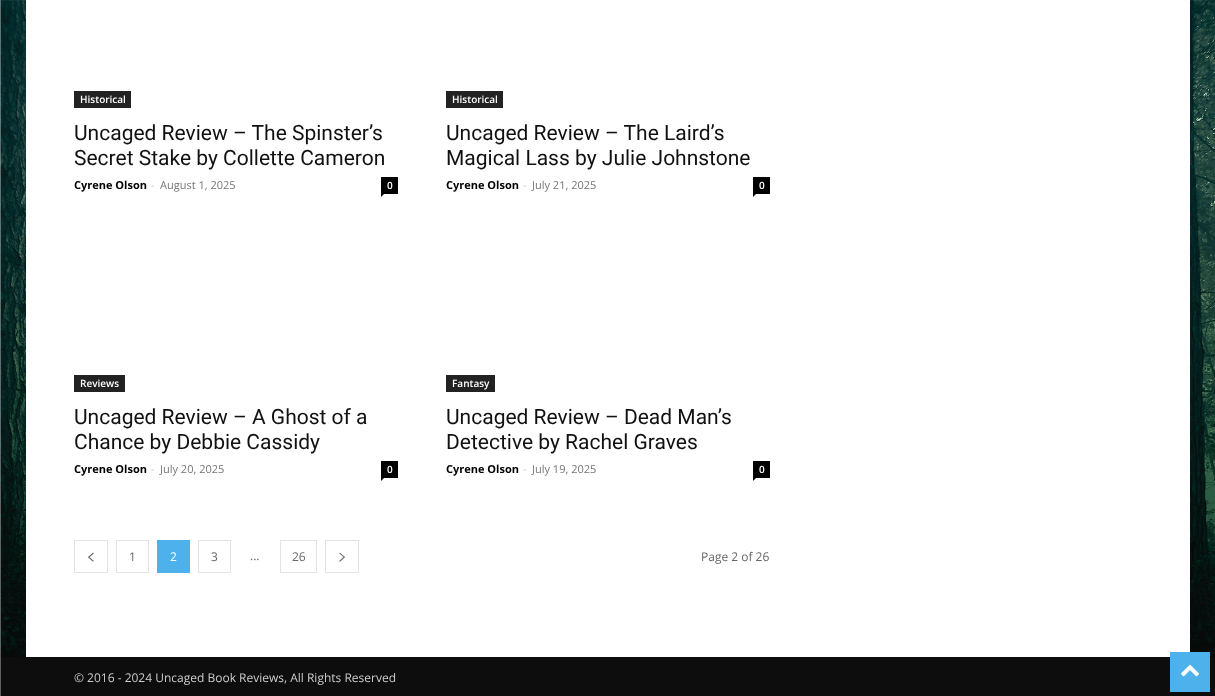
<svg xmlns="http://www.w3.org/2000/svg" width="1215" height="696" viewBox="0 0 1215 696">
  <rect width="100%" height="100%" fill="#ffffff"/>
  <image x="0" y="0" width="1215" height="696" href="img1.png"/>
  <rect x="26" y="0" width="1164" height="657" fill="#ffffff"/>
  <rect x="74" y="91" width="57" height="17" fill="#222222"/>
  <text x="80" y="103" font-family="Open Sans" font-size="10" font-weight="600" fill="#ffffff">Historical</text>
  <text x="74" y="140" font-family="Roboto" font-size="21" fill="#111111">Uncaged Review – The Spinster’s</text>
  <text x="74" y="165" font-family="Roboto" font-size="21" fill="#111111">Secret Stake by Collette Cameron</text>
  <text x="74" y="189" font-family="Open Sans" font-size="11" font-weight="bold" fill="#000000">Cyrene Olson</text>
  <text x="151" y="189" font-family="Open Sans" font-size="11" fill="#cccccc">-</text>
  <text x="160" y="189" font-family="Open Sans" font-size="11" fill="#767676">August 1, 2025</text>
  <rect x="381" y="177" width="17" height="17" fill="#000000"/>
  <text x="387" y="189" font-family="Open Sans" font-size="10" font-weight="600" fill="#ffffff">0</text>
  <path d="M381 194H384L381 197Z" fill="#000000"/>
  <rect x="446" y="91" width="57" height="17" fill="#222222"/>
  <text x="452" y="103" font-family="Open Sans" font-size="10" font-weight="600" fill="#ffffff">Historical</text>
  <text x="446" y="140" font-family="Roboto" font-size="21" fill="#111111">Uncaged Review – The Laird’s</text>
  <text x="446" y="165" font-family="Roboto" font-size="21" fill="#111111">Magical Lass by Julie Johnstone</text>
  <text x="446" y="189" font-family="Open Sans" font-size="11" font-weight="bold" fill="#000000">Cyrene Olson</text>
  <text x="523" y="189" font-family="Open Sans" font-size="11" fill="#cccccc">-</text>
  <text x="532" y="189" font-family="Open Sans" font-size="11" fill="#767676">July 21, 2025</text>
  <rect x="753" y="177" width="17" height="17" fill="#000000"/>
  <text x="759" y="189" font-family="Open Sans" font-size="10" font-weight="600" fill="#ffffff">0</text>
  <path d="M753 194H756L753 197Z" fill="#000000"/>
  <rect x="74" y="375" width="51" height="17" fill="#222222"/>
  <text x="80" y="387" font-family="Open Sans" font-size="10" font-weight="600" fill="#ffffff">Reviews</text>
  <text x="74" y="424" font-family="Roboto" font-size="21" fill="#111111">Uncaged Review – A Ghost of a</text>
  <text x="74" y="449" font-family="Roboto" font-size="21" fill="#111111">Chance by Debbie Cassidy</text>
  <text x="74" y="473" font-family="Open Sans" font-size="11" font-weight="bold" fill="#000000">Cyrene Olson</text>
  <text x="151" y="473" font-family="Open Sans" font-size="11" fill="#cccccc">-</text>
  <text x="160" y="473" font-family="Open Sans" font-size="11" fill="#767676">July 20, 2025</text>
  <rect x="381" y="461" width="17" height="17" fill="#000000"/>
  <text x="387" y="473" font-family="Open Sans" font-size="10" font-weight="600" fill="#ffffff">0</text>
  <path d="M381 478H384L381 481Z" fill="#000000"/>
  <rect x="446" y="375" width="49" height="17" fill="#222222"/>
  <text x="452" y="387" font-family="Open Sans" font-size="10" font-weight="600" fill="#ffffff">Fantasy</text>
  <text x="446" y="424" font-family="Roboto" font-size="21" fill="#111111">Uncaged Review – Dead Man’s</text>
  <text x="446" y="449" font-family="Roboto" font-size="21" fill="#111111">Detective by Rachel Graves</text>
  <text x="446" y="473" font-family="Open Sans" font-size="11" font-weight="bold" fill="#000000">Cyrene Olson</text>
  <text x="523" y="473" font-family="Open Sans" font-size="11" fill="#cccccc">-</text>
  <text x="532" y="473" font-family="Open Sans" font-size="11" fill="#767676">July 19, 2025</text>
  <rect x="753" y="461" width="17" height="17" fill="#000000"/>
  <text x="759" y="473" font-family="Open Sans" font-size="10" font-weight="600" fill="#ffffff">0</text>
  <path d="M753 478H756L753 481Z" fill="#000000"/>
  <rect x="74.5" y="540.5" width="33" height="32" fill="none" stroke="#e3e3e3"/>
  <image x="88" y="552" width="6" height="10" href="img2.png"/>
  <rect x="116.5" y="540.5" width="32" height="32" fill="none" stroke="#e3e3e3"/>
  <text x="129" y="561" font-family="Open Sans" font-size="12" fill="#666666">1</text>
  <rect x="157" y="540" width="33" height="33" fill="#4db2ec"/>
  <text x="170" y="561" font-family="Open Sans" font-size="12" fill="#ffffff">2</text>
  <rect x="198.5" y="540.5" width="32" height="32" fill="none" stroke="#e3e3e3"/>
  <text x="211" y="561" font-family="Open Sans" font-size="12" fill="#666666">3</text>
  <text x="250" y="560" font-family="Open Sans" font-size="12" fill="#666666">...</text>
  <rect x="280.5" y="540.5" width="36" height="32" fill="none" stroke="#e3e3e3"/>
  <text x="292" y="561" font-family="Open Sans" font-size="12" fill="#666666">26</text>
  <rect x="325.5" y="540.5" width="33" height="32" fill="none" stroke="#e3e3e3"/>
  <image x="339" y="552" width="6" height="10" href="img3.png"/>
  <text x="701" y="561" font-family="Open Sans" font-size="12" fill="#666666">Page 2 of 26</text>
  <rect x="1" y="657" width="1214" height="39" fill="#0d0d0d"/>
  <text x="74" y="682" font-family="Open Sans" font-size="12" fill="#cccccc">© 2016 - 2024 Uncaged Book Reviews, All Rights Reserved</text>
  <rect x="1170" y="652" width="40" height="40" fill="#4db2ec"/>
  <image x="1181" y="664" width="18" height="13" href="img4.png"/>
</svg>
